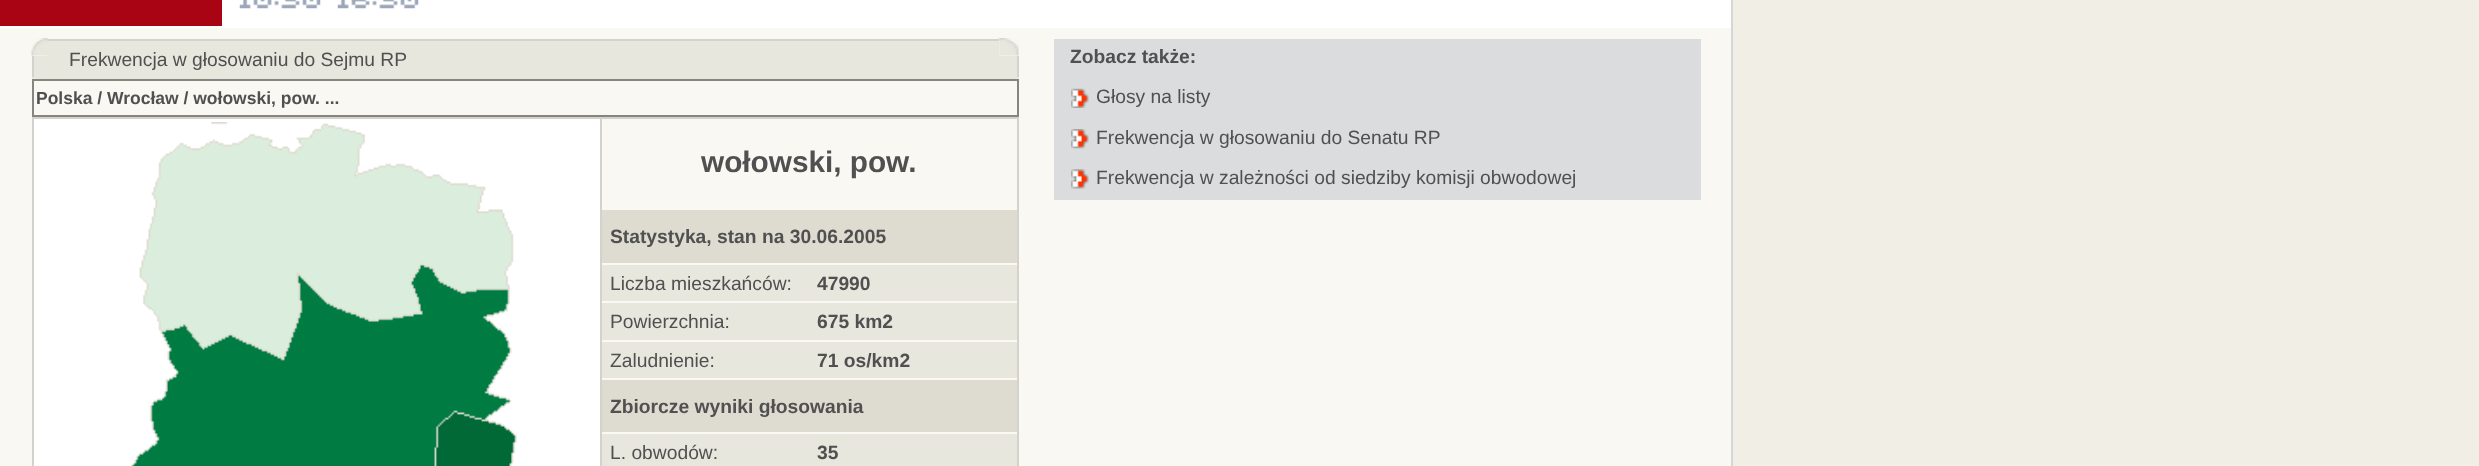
<svg xmlns="http://www.w3.org/2000/svg" width="2479" height="466" viewBox="0 0 2479 466">
  <rect width="100%" height="100%" fill="#f1eee5"/>
  <rect x="0" y="0" width="1731" height="28" fill="#ffffff"/>
  <rect x="0" y="0" width="222" height="26" fill="#a90414"/>
  <image x="239" y="0" width="82" height="9" href="img1.png"/>
  <image x="337" y="0" width="82" height="9" href="img2.png"/>
  <rect x="1731" y="0" width="2" height="466" fill="#d6d6d6"/>
  <rect x="0" y="28" width="1731" height="438" fill="#f9f8f3"/>
  <image x="31" y="38" width="17" height="18" href="img3.png"/>
  <rect x="47" y="41" width="952" height="36" fill="#e7e7de"/>
  <rect x="47" y="39" width="952" height="2" fill="#d3d2cd"/>
  <image x="999" y="38" width="20" height="18" href="img4.png"/>
  <text x="69" y="66" font-family="Liberation Sans" font-size="19.25" fill="#505050">Frekwencja w głosowaniu do Sejmu RP</text>
  <rect x="34" y="56" width="13" height="21" fill="#e7e7de"/>
  <rect x="32" y="56" width="2" height="21" fill="#d3d2cd"/>
  <rect x="999" y="56" width="18" height="21" fill="#e7e7de"/>
  <rect x="1017" y="56" width="2" height="21" fill="#d3d2cd"/>
  <rect x="32" y="77" width="987" height="2" fill="#e7e7de"/>
  <rect x="33" y="80" width="985" height="36" fill="none" stroke="#868580" stroke-width="2"/>
  <text x="36" y="104" font-family="Liberation Sans" font-size="17.5" font-weight="bold" fill="#505050">Polska / Wrocław / wołowski, pow. ...</text>
  <rect x="34" y="119" width="566" height="347" fill="#ffffff"/>
  <rect x="32" y="117" width="987" height="2" fill="#d3d2cd"/>
  <rect x="32" y="117" width="2" height="349" fill="#d3d2cd"/>
  <image x="130" y="122" width="387" height="344" href="img5.png"/>
  <rect x="602" y="265" width="415" height="201" fill="#e7e7de"/>
  <rect x="1017" y="117" width="2" height="349" fill="#d3d2cd"/>
  <rect x="600" y="117" width="2" height="349" fill="#d3d2cd"/>
  <text x="701" y="172" font-family="Liberation Sans" font-size="29.75" font-weight="bold" fill="#505050">wołowski, pow.</text>
  <rect x="602" y="210" width="415" height="53" fill="#dedcd0"/>
  <text x="610" y="243" font-family="Liberation Sans" font-size="19.25" font-weight="bold" fill="#505050">Statystyka, stan na 30.06.2005</text>
  <text x="610" y="290" font-family="Liberation Sans" font-size="19.25" fill="#505050">Liczba mieszkańców:</text>
  <text x="817" y="290" font-family="Liberation Sans" font-size="19.25" font-weight="bold" fill="#505050">47990</text>
  <rect x="602" y="301" width="415" height="2" fill="#fbf8f3"/>
  <text x="610" y="328" font-family="Liberation Sans" font-size="19.25" fill="#505050">Powierzchnia:</text>
  <text x="817" y="328" font-family="Liberation Sans" font-size="19.25" font-weight="bold" fill="#505050">675 km2</text>
  <rect x="602" y="340" width="415" height="2" fill="#fbf8f3"/>
  <text x="610" y="367" font-family="Liberation Sans" font-size="19.25" fill="#505050">Zaludnienie:</text>
  <text x="817" y="367" font-family="Liberation Sans" font-size="19.25" font-weight="bold" fill="#505050">71 os/km2</text>
  <rect x="602" y="380" width="415" height="52" fill="#dedcd0"/>
  <rect x="602" y="378" width="415" height="2" fill="#fbf8f3"/>
  <text x="610" y="413" font-family="Liberation Sans" font-size="19.25" font-weight="bold" fill="#505050">Zbiorcze wyniki głosowania</text>
  <rect x="602" y="432" width="415" height="2" fill="#fbf8f3"/>
  <text x="610" y="459" font-family="Liberation Sans" font-size="19.25" fill="#505050">L. obwodów:</text>
  <text x="817" y="459" font-family="Liberation Sans" font-size="19.25" font-weight="bold" fill="#505050">35</text>
  <rect x="1054" y="39" width="647" height="161" fill="#dbdcde"/>
  <text x="1070" y="63" font-family="Liberation Sans" font-size="19.25" font-weight="bold" fill="#505050">Zobacz także:</text>
  <image x="1071" y="88" width="18" height="20" href="img6.png"/>
  <text x="1096" y="103" font-family="Liberation Sans" font-size="19.25" fill="#505050">Głosy na listy</text>
  <image x="1071" y="129" width="18" height="20" href="img7.png"/>
  <text x="1096" y="144" font-family="Liberation Sans" font-size="19.25" fill="#505050">Frekwencja w głosowaniu do Senatu RP</text>
  <image x="1071" y="169" width="18" height="20" href="img8.png"/>
  <text x="1096" y="184" font-family="Liberation Sans" font-size="19.25" fill="#505050">Frekwencja w zależności od siedziby komisji obwodowej</text>
</svg>
